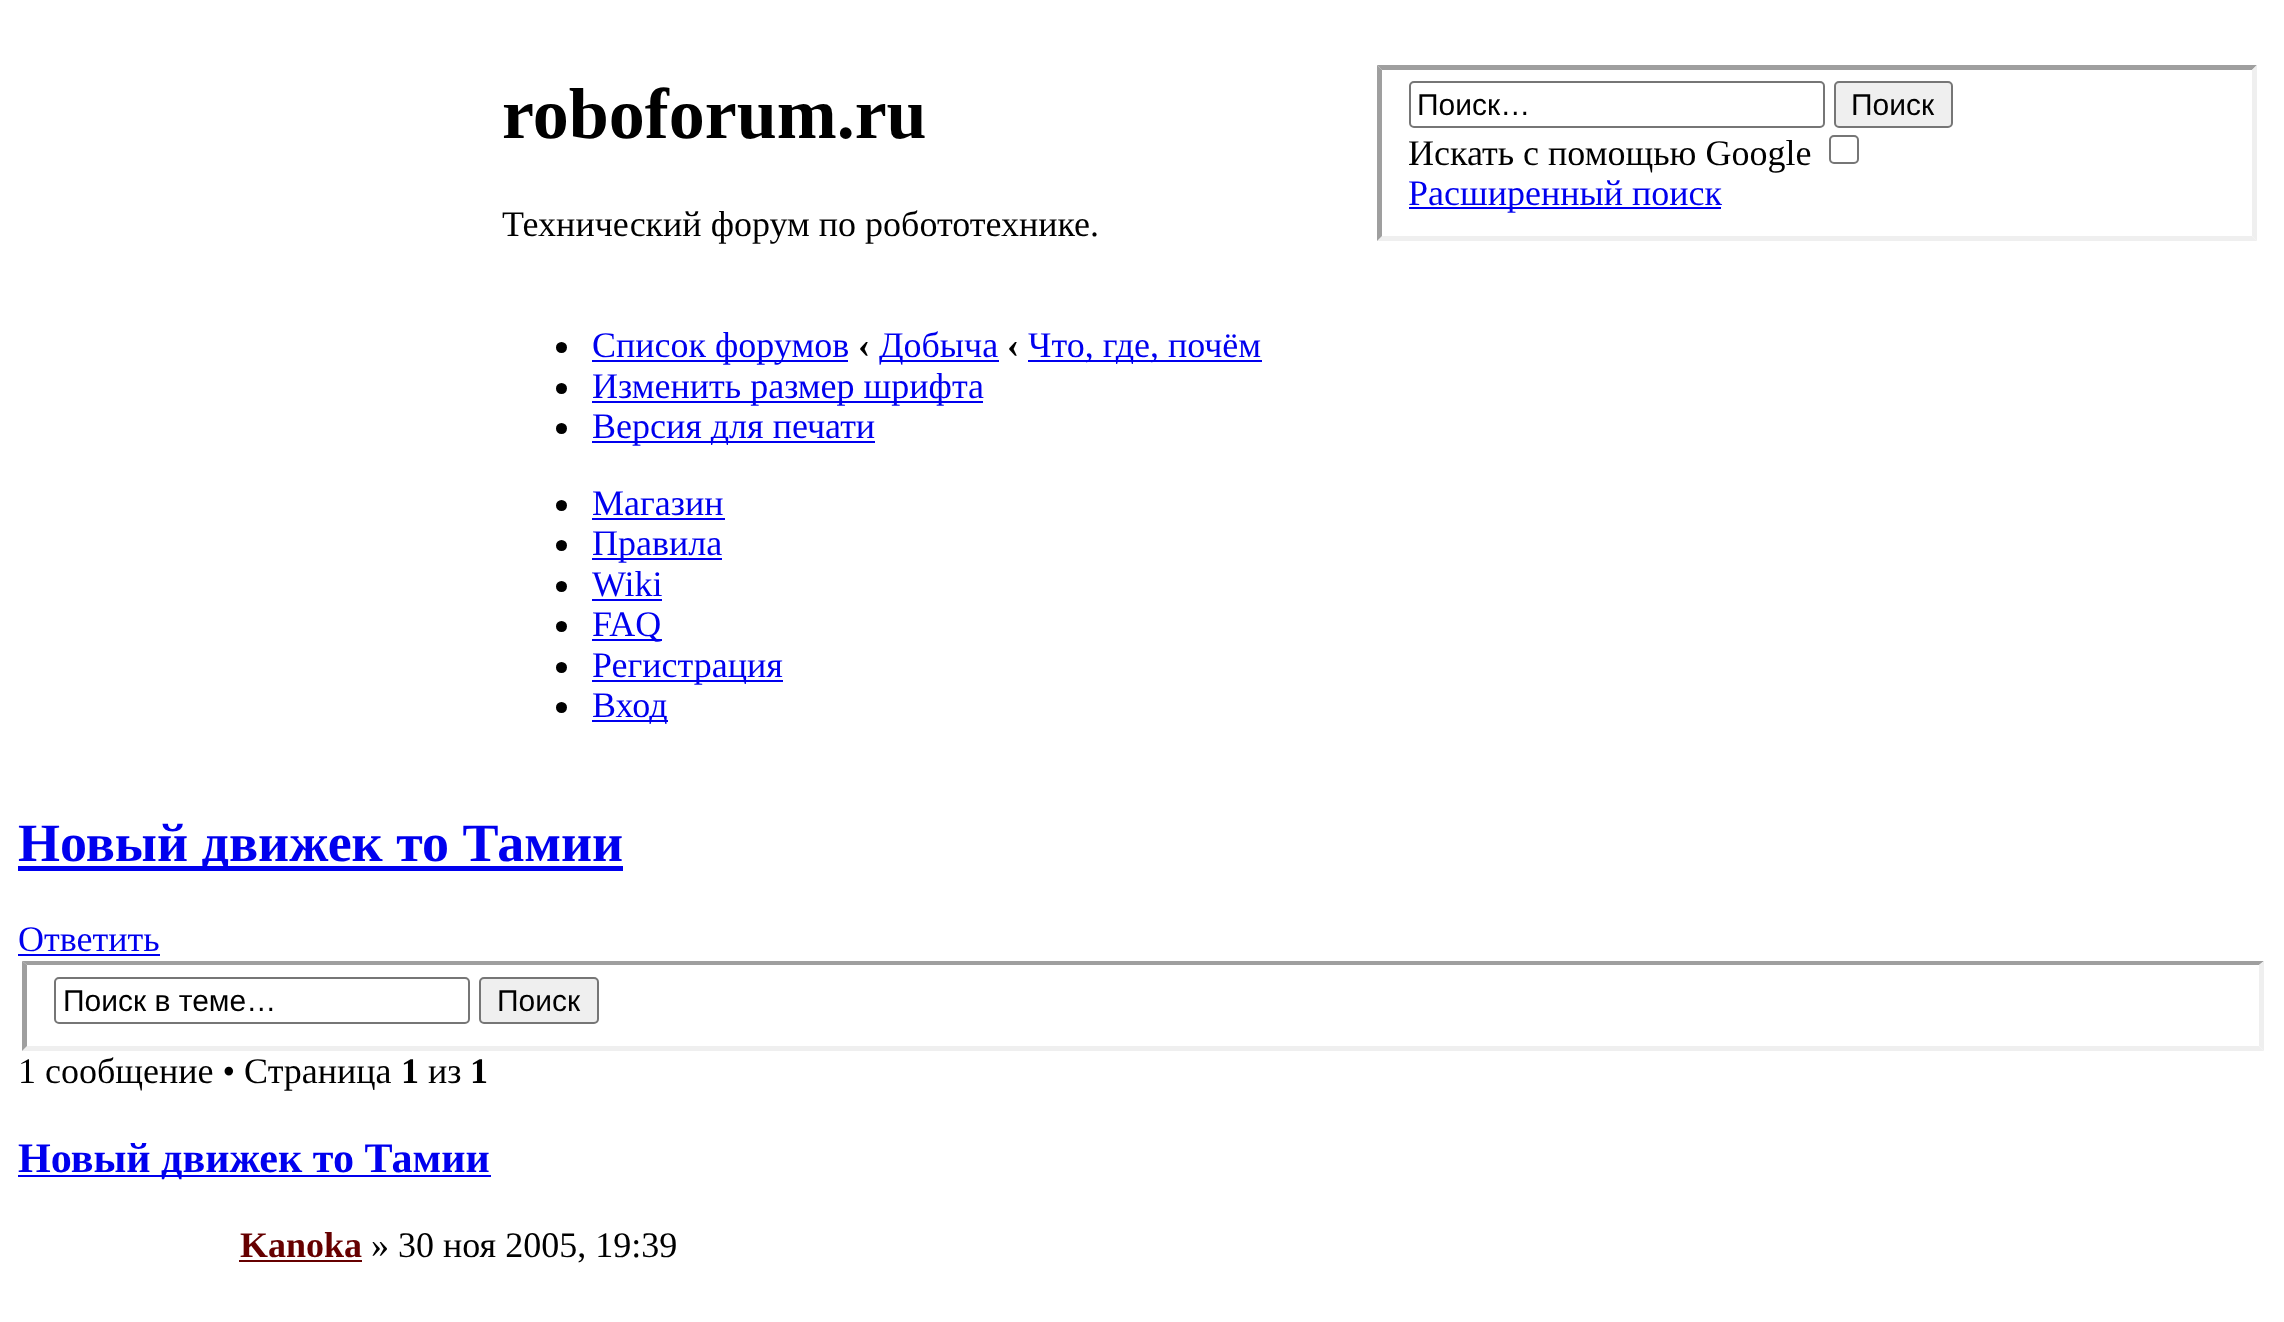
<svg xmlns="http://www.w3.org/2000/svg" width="2284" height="1322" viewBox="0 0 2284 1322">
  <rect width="100%" height="100%" fill="#ffffff"/>
  <text x="502" y="138" font-family="Liberation Serif" font-size="72" font-weight="bold" fill="#000000">roboforum.ru</text>
  <text x="502" y="236" font-family="Liberation Serif" font-size="36" fill="#000000">Технический форум по робототехнике.</text>
  <path d="M1377 65H2257L2252 70H1382Z" fill="#9f9f9f"/>
  <path d="M2257 65V241L2252 236V70Z" fill="#efefef"/>
  <path d="M2257 241H1377L1382 236H2252Z" fill="#efefef"/>
  <path d="M1377 241V65L1382 70V236Z" fill="#9f9f9f"/>
  <rect x="1410" y="82" width="414" height="45" rx="4" fill="none" stroke="#767676" stroke-width="2"/>
  <text x="1417" y="115" font-family="Liberation Sans" font-size="30" fill="#000000">Поиск…</text>
  <rect x="1835" y="82" width="117" height="45" rx="4" fill="#efefef" stroke="#767676" stroke-width="2"/>
  <text x="1851" y="115" font-family="Liberation Sans" font-size="30" fill="#000000">Поиск</text>
  <text x="1408" y="165" font-family="Liberation Serif" font-size="36" fill="#000000">Искать с помощью Google</text>
  <rect x="1830" y="136" width="28" height="27" rx="4" fill="none" stroke="#767676" stroke-width="2"/>
  <rect x="1409" y="207" width="312" height="2" fill="#0000ee"/>
  <text x="1408" y="205" font-family="Liberation Serif" font-size="36" fill="#0000ee">Расширенный поиск</text>
  <circle cx="561.5" cy="347.5" r="5.5" fill="#000000"/>
  <rect x="592" y="360" width="256" height="2" fill="#0000ee"/>
  <text x="592" y="357" font-family="Liberation Serif" font-size="36" fill="#0000ee">Список форумов</text>
  <text x="858" y="357" font-family="Liberation Serif" font-size="36" font-weight="bold" fill="#000000">‹</text>
  <rect x="880" y="360" width="119" height="2" fill="#0000ee"/>
  <text x="879" y="357" font-family="Liberation Serif" font-size="36" fill="#0000ee">Добыча</text>
  <text x="1007" y="357" font-family="Liberation Serif" font-size="36" font-weight="bold" fill="#000000">‹</text>
  <rect x="1028" y="360" width="234" height="2" fill="#0000ee"/>
  <text x="1028" y="357" font-family="Liberation Serif" font-size="36" fill="#0000ee">Что, где, почём</text>
  <circle cx="561.5" cy="388.5" r="5.5" fill="#000000"/>
  <rect x="592" y="401" width="391" height="2" fill="#0000ee"/>
  <text x="592" y="398" font-family="Liberation Serif" font-size="36" fill="#0000ee">Изменить размер шрифта</text>
  <circle cx="561.5" cy="428.5" r="5.5" fill="#000000"/>
  <rect x="592" y="441" width="283" height="2" fill="#0000ee"/>
  <text x="592" y="438" font-family="Liberation Serif" font-size="36" fill="#0000ee">Версия для печати</text>
  <circle cx="561.5" cy="505.5" r="5.5" fill="#000000"/>
  <text x="592" y="515" font-family="Liberation Serif" font-size="36" fill="#0000ee">Магазин</text>
  <rect x="592" y="518" width="133" height="2" fill="#0000ee"/>
  <circle cx="561.5" cy="545.5" r="5.5" fill="#000000"/>
  <rect x="592" y="558" width="130" height="2" fill="#0000ee"/>
  <text x="592" y="555" font-family="Liberation Serif" font-size="36" fill="#0000ee">Правила</text>
  <circle cx="561.5" cy="586.5" r="5.5" fill="#000000"/>
  <text x="592" y="596" font-family="Liberation Serif" font-size="36" fill="#0000ee">Wiki</text>
  <rect x="592" y="599" width="70" height="2" fill="#0000ee"/>
  <circle cx="561.5" cy="626.5" r="5.5" fill="#000000"/>
  <rect x="592" y="639" width="70" height="2" fill="#0000ee"/>
  <text x="592" y="636" font-family="Liberation Serif" font-size="36" fill="#0000ee">FAQ</text>
  <circle cx="561.5" cy="667.5" r="5.5" fill="#000000"/>
  <rect x="592" y="680" width="191" height="2" fill="#0000ee"/>
  <text x="592" y="677" font-family="Liberation Serif" font-size="36" fill="#0000ee">Регистрация</text>
  <circle cx="561.5" cy="707.5" r="5.5" fill="#000000"/>
  <rect x="592" y="720" width="76" height="2" fill="#0000ee"/>
  <text x="592" y="717" font-family="Liberation Serif" font-size="36" fill="#0000ee">Вход</text>
  <rect x="18" y="866" width="605" height="5" fill="#0000ee"/>
  <text x="18" y="861" font-family="Liberation Serif" font-size="54" font-weight="bold" fill="#0000ee">Новый движек то Тамии</text>
  <text x="18" y="951" font-family="Liberation Serif" font-size="36" fill="#0000ee">Ответить</text>
  <rect x="18" y="954" width="142" height="2" fill="#0000ee"/>
  <path d="M22 961H2264L2259 965H27Z" fill="#9f9f9f"/>
  <path d="M2264 961V1051L2259 1046V965Z" fill="#efefef"/>
  <path d="M2264 1051H22L27 1046H2259Z" fill="#efefef"/>
  <path d="M22 1051V961L27 965V1046Z" fill="#9f9f9f"/>
  <rect x="55" y="978" width="414" height="45" rx="4" fill="none" stroke="#767676" stroke-width="2"/>
  <text x="63" y="1011" font-family="Liberation Sans" font-size="30" fill="#000000">Поиск в теме…</text>
  <rect x="480" y="978" width="118" height="45" rx="4" fill="#efefef" stroke="#767676" stroke-width="2"/>
  <text x="497" y="1011" font-family="Liberation Sans" font-size="30" fill="#000000">Поиск</text>
  <text x="18" y="1083" font-family="Liberation Serif" font-size="36" fill="#000000">1 сообщение • Страница</text>
  <text x="401" y="1083" font-family="Liberation Serif" font-size="36" font-weight="bold" fill="#000000">1</text>
  <text x="428" y="1083" font-family="Liberation Serif" font-size="36" fill="#000000">из</text>
  <text x="470" y="1083" font-family="Liberation Serif" font-size="36" font-weight="bold" fill="#000000">1</text>
  <rect x="18" y="1175" width="473" height="2" fill="#0000ee"/>
  <text x="18" y="1172" font-family="Liberation Serif" font-size="42.1" font-weight="bold" fill="#0000ee">Новый движек то Тамии</text>
  <text x="240" y="1257" font-family="Liberation Serif" font-size="36" font-weight="bold" fill="#660000">Kanoka</text>
  <rect x="239" y="1260" width="123" height="2" fill="#660000"/>
  <text x="371" y="1257" font-family="Liberation Serif" font-size="36" fill="#000000">» 30 ноя 2005, 19:39</text>
</svg>
